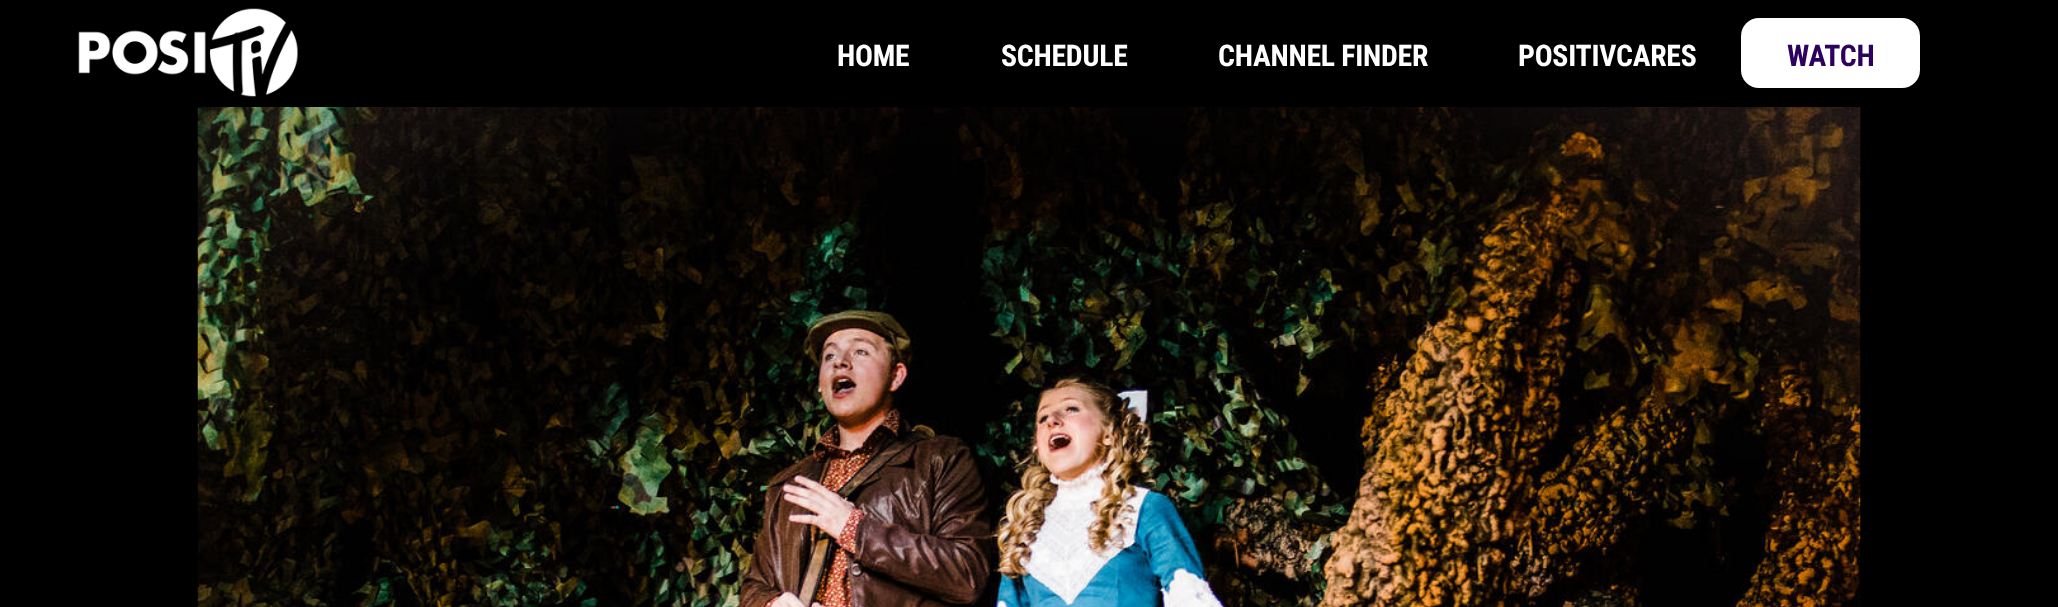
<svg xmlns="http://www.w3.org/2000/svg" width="2058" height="607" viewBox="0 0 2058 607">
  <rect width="100%" height="100%" fill="#000000"/>
  <image x="78" y="8" width="220" height="89" href="img1.png"/>
  <text x="837" y="66" font-family="Roboto Condensed" font-size="29.75" font-weight="bold" letter-spacing="-0.25" fill="#ffffff">HOME</text>
  <text x="1001" y="66" font-family="Roboto Condensed" font-size="29.75" font-weight="bold" letter-spacing="-0.25" fill="#ffffff">SCHEDULE</text>
  <text x="1218" y="66" font-family="Roboto Condensed" font-size="29.75" font-weight="bold" letter-spacing="-0.25" fill="#ffffff">CHANNEL FINDER</text>
  <text x="1518" y="66" font-family="Roboto Condensed" font-size="29.75" font-weight="bold" letter-spacing="-0.25" fill="#ffffff">POSITIVCARES</text>
  <rect x="1741" y="18" width="179" height="70" rx="18" fill="#ffffff"/>
  <text x="1787" y="66" font-family="Roboto Condensed" font-size="29.75" font-weight="bold" letter-spacing="-0.25" fill="#2d0060">WATCH</text>
  <image x="197" y="107" width="1664" height="500" href="img2.png"/>
</svg>
